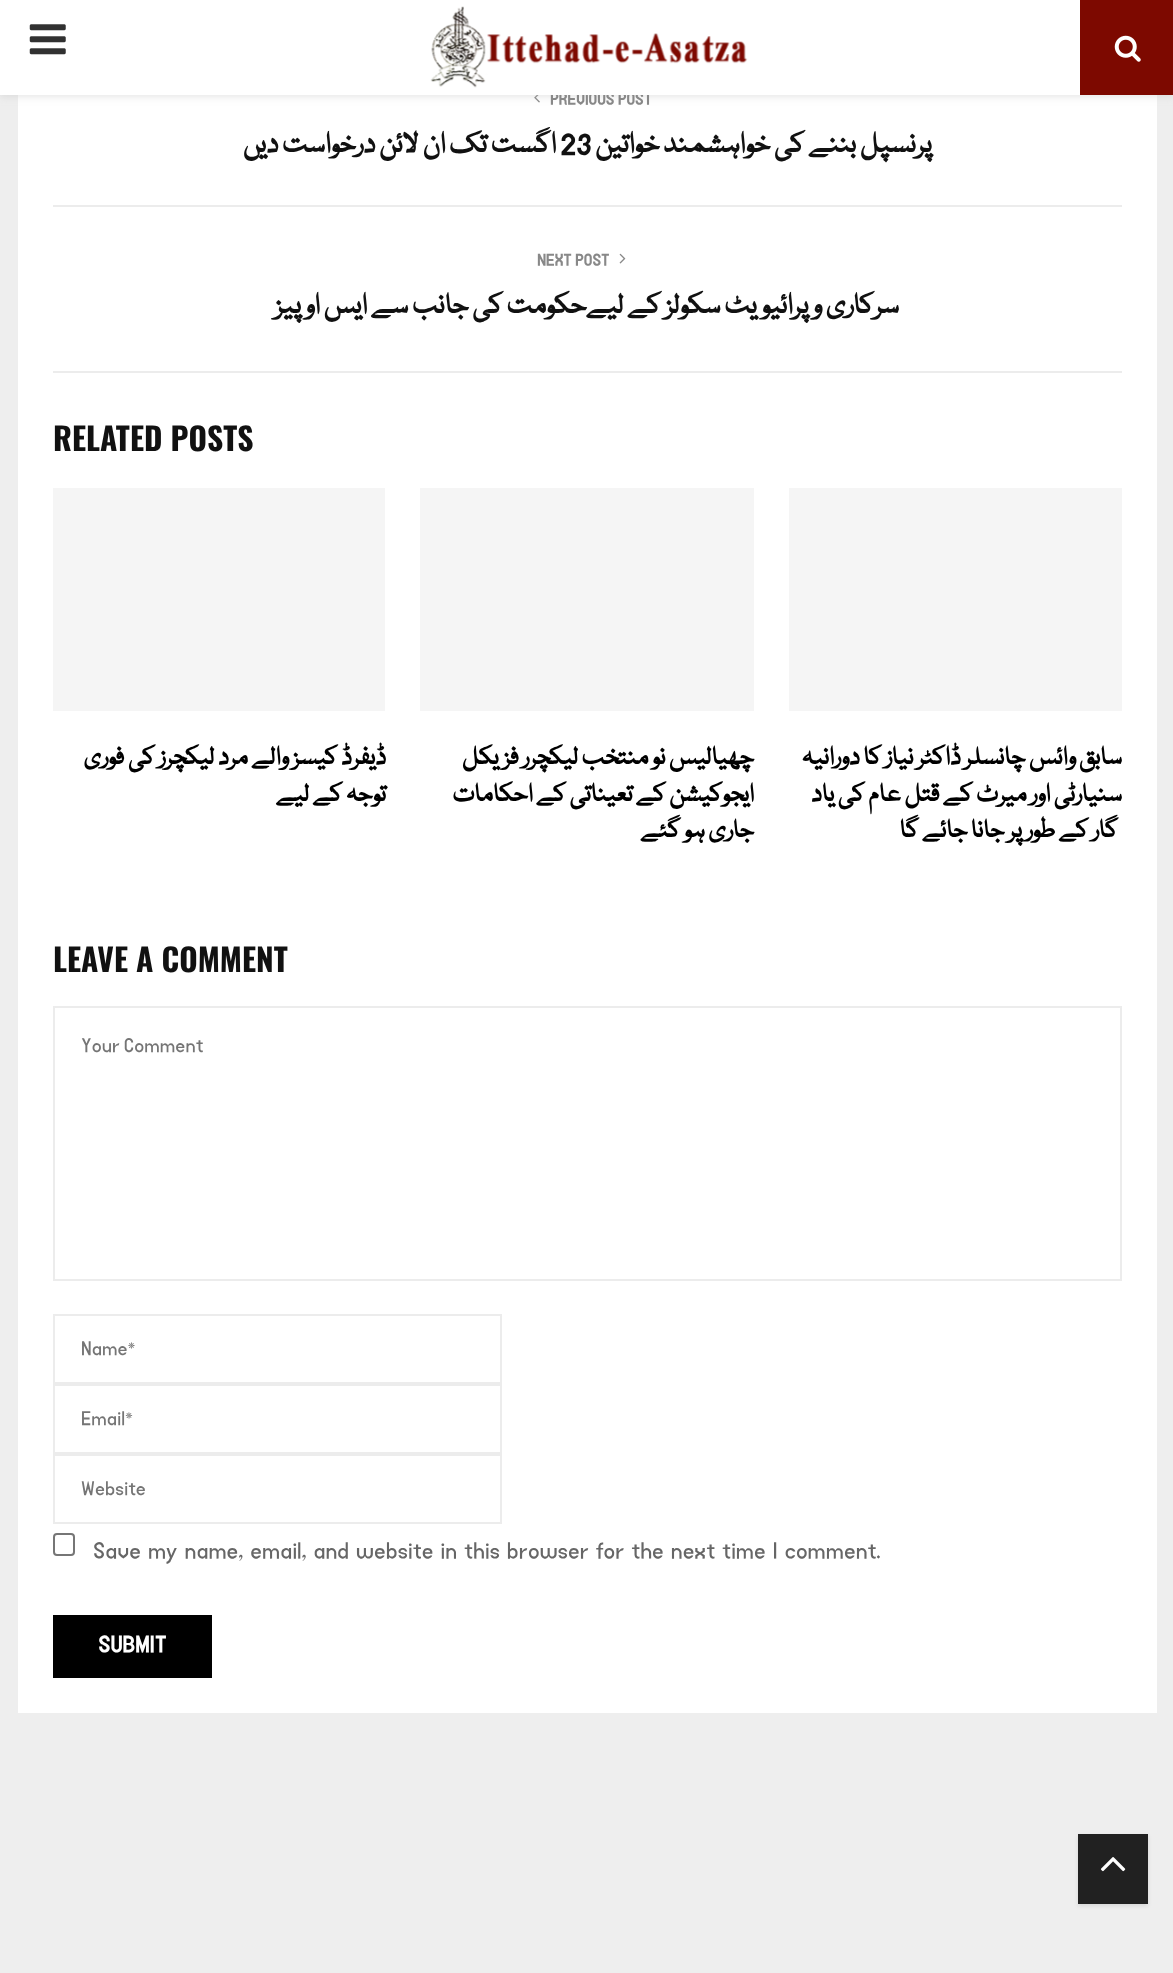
<svg xmlns="http://www.w3.org/2000/svg" width="1173" height="1973" viewBox="0 0 1173 1973">
  <defs>
    <filter id="blur1" x="-50%" y="-200%" width="200%" height="500%"><feGaussianBlur stdDeviation="4.5"/></filter>
    <filter id="blur2" x="-50%" y="-200%" width="200%" height="500%"><feGaussianBlur stdDeviation="2"/></filter>
  </defs>
  <rect width="100%" height="100%" fill="#eeeeee"/>
  <rect x="18" y="95" width="1139" height="1618" fill="#ffffff"/>
  <image x="534" y="95" width="6" height="8" href="img4.png"/>
  <rect x="0" y="2" width="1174" height="94" fill="#bebebe" fill-opacity="0.46" filter="url(#blur1)"/>
  <text x="550" y="103" font-family="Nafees" font-size="17.5" font-weight="bold" fill="#888888">PREVIOUS POST</text>
  <rect x="0" y="0" width="1080" height="95" fill="#ffffff"/>
  <rect x="1080" y="0" width="93" height="95" fill="#7d0900"/>
  <image x="1114" y="35" width="27" height="27" href="img1.png"/>
  <image x="430" y="6" width="318" height="82" href="img2.png"/>
  <image x="29" y="24" width="37" height="31" href="img3.png"/>
  <rect x="53" y="371" width="1069" height="2" fill="#ececec"/>
  <text x="932" y="152" font-family="Nafees" font-size="31.5" font-weight="bold" direction="rtl" fill="#111111">پرنسپل بننے کی خواہشمند خواتین</text>
  <text x="560" y="152" font-family="Nafees" font-size="31.5" font-weight="bold" fill="#111111">23</text>
  <text x="556" y="152" font-family="Nafees" font-size="31.5" font-weight="bold" direction="rtl" fill="#111111">اگست تک ان لائن درخواست دیں</text>
  <rect x="53" y="205" width="1069" height="2" fill="#ececec"/>
  <image x="619" y="253" width="7" height="11" href="img5.png"/>
  <text x="537" y="264" font-family="Nafees" font-size="17.5" font-weight="bold" fill="#888888">NEXT POST</text>
  <text x="899" y="313" font-family="Nafees" font-size="31.5" font-weight="bold" direction="rtl" fill="#111111">سرکاری و پرائیویٹ سکولز کے لیےحکومت کی جانب سے ایس او پیز</text>
  <text x="53" y="451" font-family="Oswald" font-size="31.5" font-weight="bold" fill="#111111">RELATED POSTS</text>
  <rect x="789" y="488" width="333" height="223" fill="#f5f5f5"/>
  <text x="1122" y="764" font-family="Nafees" font-size="28" font-weight="bold" direction="rtl" fill="#000000">سابق وائس چانسلر ڈاکٹر نیاز کا دورانیہ</text>
  <text x="1122" y="801" font-family="Nafees" font-size="28" font-weight="bold" direction="rtl" fill="#000000">سنیارٹی اور میرٹ کے قتل عام کی یاد</text>
  <text x="1118" y="837" font-family="Nafees" font-size="28" font-weight="bold" direction="rtl" fill="#000000">گار کے طور پر جانا جائے گا</text>
  <rect x="420" y="488" width="334" height="223" fill="#f5f5f5"/>
  <text x="754" y="764" font-family="Nafees" font-size="28" font-weight="bold" direction="rtl" fill="#000000">چھیالیس نو منتخب لیکچرر فزیکل</text>
  <text x="754" y="801" font-family="Nafees" font-size="28" font-weight="bold" direction="rtl" fill="#000000">ایجوکیشن کے تعیناتی کے احکامات</text>
  <text x="754" y="837" font-family="Nafees" font-size="28" font-weight="bold" direction="rtl" fill="#000000">جاری ہو گئے</text>
  <rect x="53" y="488" width="332" height="223" fill="#f5f5f5"/>
  <text x="386" y="764" font-family="Nafees" font-size="28" font-weight="bold" direction="rtl" fill="#000000">ڈیفرڈ کیسز والے مرد لیکچرز کی فوری</text>
  <text x="386" y="801" font-family="Nafees" font-size="28" font-weight="bold" direction="rtl" fill="#000000">توجہ کے لیے</text>
  <text x="53" y="972" font-family="Oswald" font-size="31.5" font-weight="bold" fill="#111111">LEAVE A COMMENT</text>
  <rect x="54" y="1007" width="1067" height="273" fill="none" stroke="#ececec" stroke-width="2"/>
  <text x="81" y="1050" font-family="Nafees" font-size="21" fill="#757575">Your Comment</text>
  <rect x="54" y="1315" width="447" height="68" fill="none" stroke="#ececec" stroke-width="2"/>
  <text x="81" y="1353" font-family="Nafees" font-size="21" fill="#757575">Name*</text>
  <rect x="54" y="1385" width="447" height="68" fill="none" stroke="#ececec" stroke-width="2"/>
  <text x="81" y="1423" font-family="Nafees" font-size="21" fill="#757575">Email*</text>
  <rect x="54" y="1455" width="447" height="68" fill="none" stroke="#ececec" stroke-width="2"/>
  <text x="81" y="1493" font-family="Nafees" font-size="21" fill="#757575">Website</text>
  <text x="93" y="1556" word-spacing="2.1" font-family="Nafees" font-size="24.5" fill="#666666">Save my name, email, and website in this browser for the next time I comment.</text>
  <rect x="54" y="1534" width="20" height="21" rx="3" fill="none" stroke="#767676" stroke-width="2"/>
  <rect x="53" y="1615" width="159" height="63" fill="#000000"/>
  <text x="98" y="1650" font-family="Nafees" font-size="24.5" font-weight="bold" fill="#ffffff">SUBMIT</text>
  <rect x="1078" y="1836" width="70" height="70" fill="#000000" fill-opacity="0.1" filter="url(#blur2)"/>
  <rect x="1078" y="1834" width="70" height="70" fill="#212121"/>
  <image x="1100" y="1857" width="26" height="15" href="img6.png"/>
</svg>
